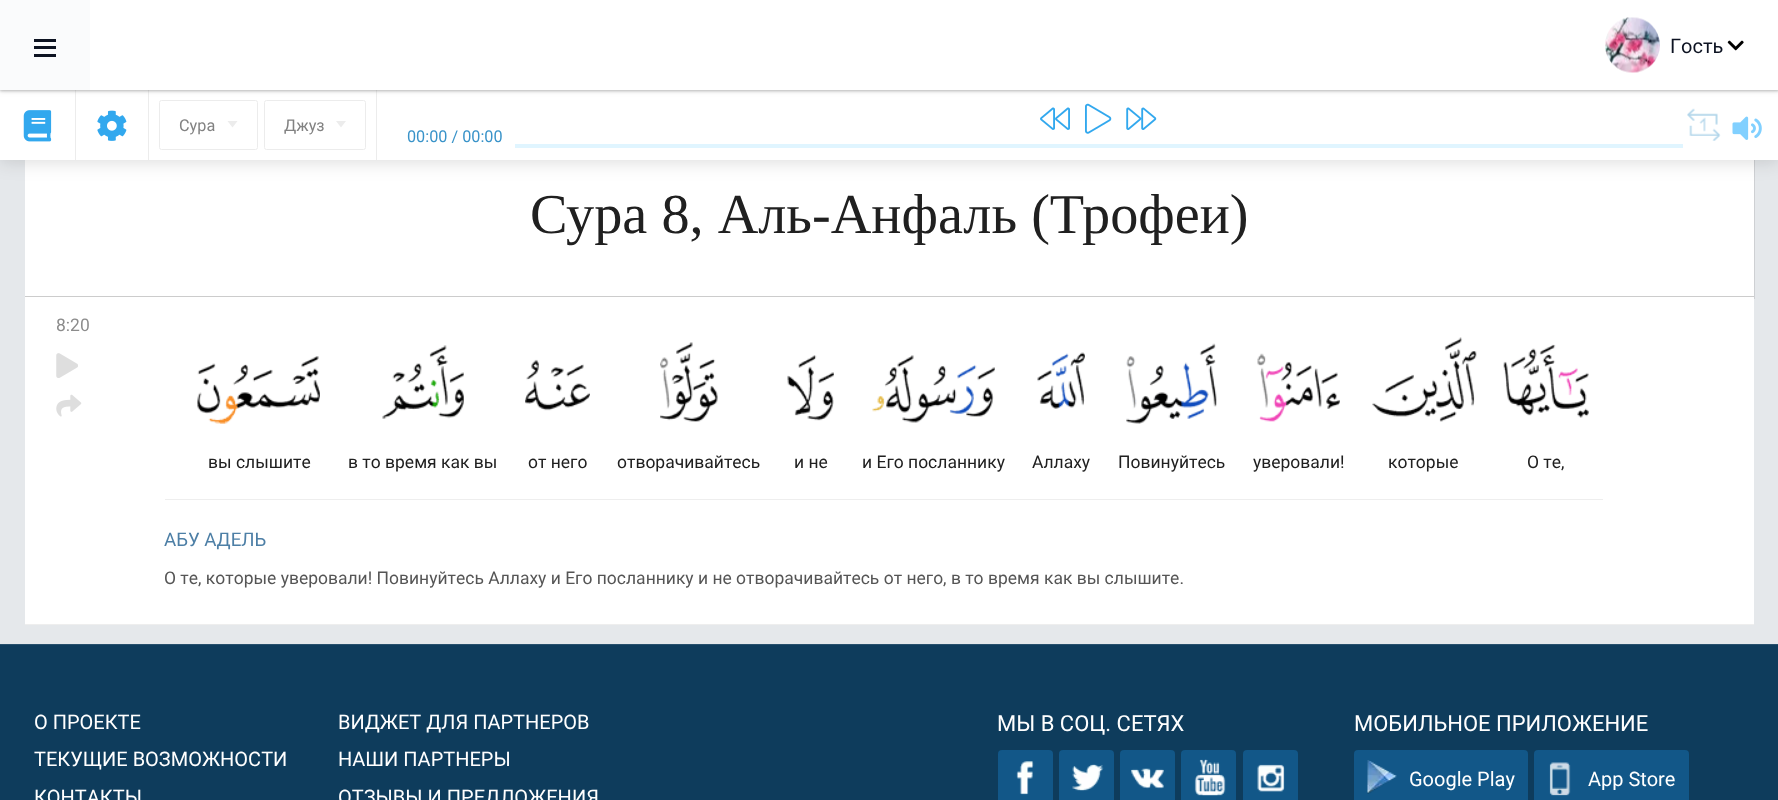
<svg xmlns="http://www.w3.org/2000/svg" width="1778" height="800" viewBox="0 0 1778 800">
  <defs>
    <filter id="blur1" x="-50%" y="-200%" width="200%" height="500%"><feGaussianBlur stdDeviation="0.5"/></filter>
    <filter id="blur2" x="-50%" y="-200%" width="200%" height="500%"><feGaussianBlur stdDeviation="9.5"/></filter>
    <filter id="blur3" x="-50%" y="-200%" width="200%" height="500%"><feGaussianBlur stdDeviation="1"/></filter>
    <filter id="blur4" x="-50%" y="-200%" width="200%" height="500%"><feGaussianBlur stdDeviation="2.5"/></filter>
  </defs>
  <rect width="100%" height="100%" fill="#e5e8eb"/>
  <rect x="26" y="133" width="1729" height="166" fill="#000000" fill-opacity="0.1" filter="url(#blur1)"/>
  <rect x="25" y="160" width="1729" height="464" fill="#ffffff"/>
  <rect x="-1" y="89" width="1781" height="72" fill="#000000" fill-opacity="0.15" filter="url(#blur2)"/>
  <rect x="0" y="90" width="1778" height="70" fill="#ffffff"/>
  <rect x="148" y="90" width="1" height="70" fill="#ececec"/>
  <rect x="75" y="90" width="1" height="70" fill="#ececec"/>
  <rect x="376" y="90" width="1" height="70" fill="#ececec"/>
  <rect x="0" y="1" width="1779" height="90" fill="#000000" fill-opacity="0.2" filter="url(#blur3)"/>
  <rect x="0" y="1" width="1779" height="90" fill="#aaaaaa" fill-opacity="0.5" filter="url(#blur4)"/>
  <rect x="90" y="0" width="1688" height="90" fill="#ffffff"/>
  <rect x="0" y="0" width="90" height="90" fill="#fafbfc"/>
  <rect x="34" y="39" width="22" height="3" fill="#0d1322"/>
  <rect x="34" y="46" width="22" height="3" fill="#0d1322"/>
  <rect x="34" y="54" width="22" height="3" fill="#0d1322"/>
  <image x="1605" y="17" width="55" height="56" href="img1.png"/>
  <text x="1670" y="53" font-family="Roboto" font-size="20" fill="#0d1322">Гость</text>
  <image x="1727" y="40" width="17" height="11" href="img2.png"/>
  <image x="23" y="110" width="29" height="32" href="img3.png"/>
  <image x="97" y="110" width="30" height="31" href="img4.png"/>
  <rect x="159.5" y="100.5" width="98" height="49" rx="2" fill="none" stroke="#ececec"/>
  <text x="179" y="131" font-family="Roboto" font-size="16.25" fill="#828282">Сура</text>
  <path d="M227.5 121H237.5L232.5 127.5Z" fill="#ececec"/>
  <rect x="264.5" y="100.5" width="101" height="49" rx="2" fill="none" stroke="#ececec"/>
  <text x="284" y="131" font-family="Roboto" font-size="16.25" fill="#828282">Джуз</text>
  <path d="M336 121H346L341 127.5Z" fill="#ececec"/>
  <text x="407" y="142" font-family="Roboto" font-size="16.25" fill="#3993c9">00:00 / 00:00</text>
  <image x="1040" y="107" width="30" height="23" href="img5.png"/>
  <image x="1085" y="103" width="27" height="31" href="img6.png"/>
  <image x="1126" y="107" width="31" height="23" href="img7.png"/>
  <rect x="515" y="144" width="1168" height="4" fill="#e0f5ff"/>
  <image x="1687" y="108" width="34" height="33" href="img8.png"/>
  <image x="1732" y="116" width="30" height="24" href="img9.png"/>
  <rect x="25" y="296" width="1729" height="1" fill="#cccccc"/>
  <text x="530" y="233" font-family="Liberation Serif" font-size="56.25" fill="#202020">Сура 8, Аль-Анфаль (Трофеи)</text>
  <rect x="25" y="624" width="1729" height="1" fill="#eeeeee"/>
  <text x="56" y="331" font-family="Roboto" font-size="17.5" fill="#8c8c8c">8:20</text>
  <image x="56" y="353" width="22" height="25" href="img10.png"/>
  <image x="56" y="394" width="26" height="23" href="img11.png"/>
  <image x="197" y="356" width="123" height="68" href="img12.png"/>
  <text x="208" y="468" font-family="Roboto" font-size="17.5" fill="#202020">вы слышите</text>
  <image x="382" y="345" width="82" height="74" href="img13.png"/>
  <text x="348" y="468" font-family="Roboto" font-size="17.5" fill="#202020">в то время как вы</text>
  <image x="525" y="359" width="65" height="52" href="img14.png"/>
  <text x="528" y="468" font-family="Roboto" font-size="17.5" fill="#202020">от него</text>
  <image x="660" y="342" width="58" height="80" href="img15.png"/>
  <text x="617" y="468" font-family="Roboto" font-size="17.5" fill="#202020">отворачивайтесь</text>
  <image x="787" y="355" width="47" height="66" href="img16.png"/>
  <text x="794" y="468" font-family="Roboto" font-size="17.5" fill="#202020">и не</text>
  <image x="872" y="355" width="123" height="68" href="img17.png"/>
  <text x="862" y="468" font-family="Roboto" font-size="17.5" fill="#202020">и Его посланнику</text>
  <image x="1037" y="352" width="48" height="57" href="img18.png"/>
  <text x="1032" y="468" font-family="Roboto" font-size="17.5" fill="#202020">Аллаху</text>
  <image x="1126" y="343" width="91" height="81" href="img19.png"/>
  <text x="1118" y="468" font-family="Roboto" font-size="17.5" fill="#202020">Повинуйтесь</text>
  <image x="1257" y="353" width="83" height="69" href="img20.png"/>
  <text x="1253" y="468" font-family="Roboto" font-size="17.5" fill="#202020">уверовали!</text>
  <image x="1372" y="337" width="105" height="85" href="img21.png"/>
  <text x="1388" y="468" font-family="Roboto" font-size="17.5" fill="#202020">которые</text>
  <image x="1503" y="344" width="86" height="74" href="img22.png"/>
  <text x="1527" y="468" font-family="Roboto" font-size="17.5" fill="#202020">О те,</text>
  <rect x="165" y="499" width="1438" height="1" fill="#eeeeee"/>
  <text x="164" y="546" font-family="Roboto" font-size="18.75" fill="#4d7fa6">АБУ АДЕЛЬ</text>
  <text x="164" y="584" font-family="Roboto" font-size="17.5" fill="#555555">О те, которые уверовали! Повинуйтесь Аллаху и Его посланнику и не отворачивайтесь от него, в то время как вы слышите.</text>
  <rect x="0" y="645" width="1778" height="155" fill="#0e3c5c"/>
  <rect x="0" y="644" width="1778" height="1" fill="#27506d"/>
  <text x="34" y="729" font-family="Roboto" font-size="20" fill="#ffffff">О ПРОЕКТЕ</text>
  <text x="34" y="766" font-family="Roboto" font-size="20" fill="#ffffff">ТЕКУЩИЕ ВОЗМОЖНОСТИ</text>
  <text x="34" y="804" font-family="Roboto" font-size="20" fill="#ffffff">КОНТАКТЫ</text>
  <text x="338" y="729" font-family="Roboto" font-size="20" fill="#ffffff">ВИДЖЕТ ДЛЯ ПАРТНЕРОВ</text>
  <text x="338" y="766" font-family="Roboto" font-size="20" fill="#ffffff">НАШИ ПАРТНЕРЫ</text>
  <text x="338" y="804" font-family="Roboto" font-size="20" fill="#ffffff">ОТЗЫВЫ И ПРЕДЛОЖЕНИЯ</text>
  <text x="997" y="731" font-family="Roboto" font-size="22" fill="#ffffff">МЫ В СОЦ. СЕТЯХ</text>
  <rect x="998" y="750" width="55" height="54" rx="4" fill="#125788"/>
  <image x="1016" y="761" width="18" height="34" href="img23.png"/>
  <rect x="1059" y="750" width="55" height="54" rx="4" fill="#125788"/>
  <image x="1072" y="764" width="32" height="27" href="img24.png"/>
  <rect x="1120" y="750" width="55" height="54" rx="4" fill="#125788"/>
  <image x="1131" y="768" width="33" height="21" href="img25.png"/>
  <rect x="1181" y="750" width="55" height="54" rx="4" fill="#125788"/>
  <image x="1194" y="759" width="32" height="37" href="img26.png"/>
  <rect x="1243" y="750" width="55" height="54" rx="4" fill="#125788"/>
  <image x="1257" y="764" width="28" height="28" href="img27.png"/>
  <text x="1354" y="731" font-family="Roboto" font-size="22" fill="#ffffff">МОБИЛЬНОЕ ПРИЛОЖЕНИЕ</text>
  <rect x="1354" y="750" width="174" height="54" rx="4" fill="#125788"/>
  <image x="1367" y="760" width="30" height="34" href="img28.png"/>
  <text x="1409" y="786" font-family="Roboto" font-size="20" fill="#ffffff">Google Play</text>
  <rect x="1534" y="750" width="155" height="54" rx="4" fill="#125788"/>
  <image x="1549" y="762" width="22" height="34" href="img29.png"/>
  <text x="1588" y="786" font-family="Roboto" font-size="20" fill="#ffffff">App Store</text>
</svg>
